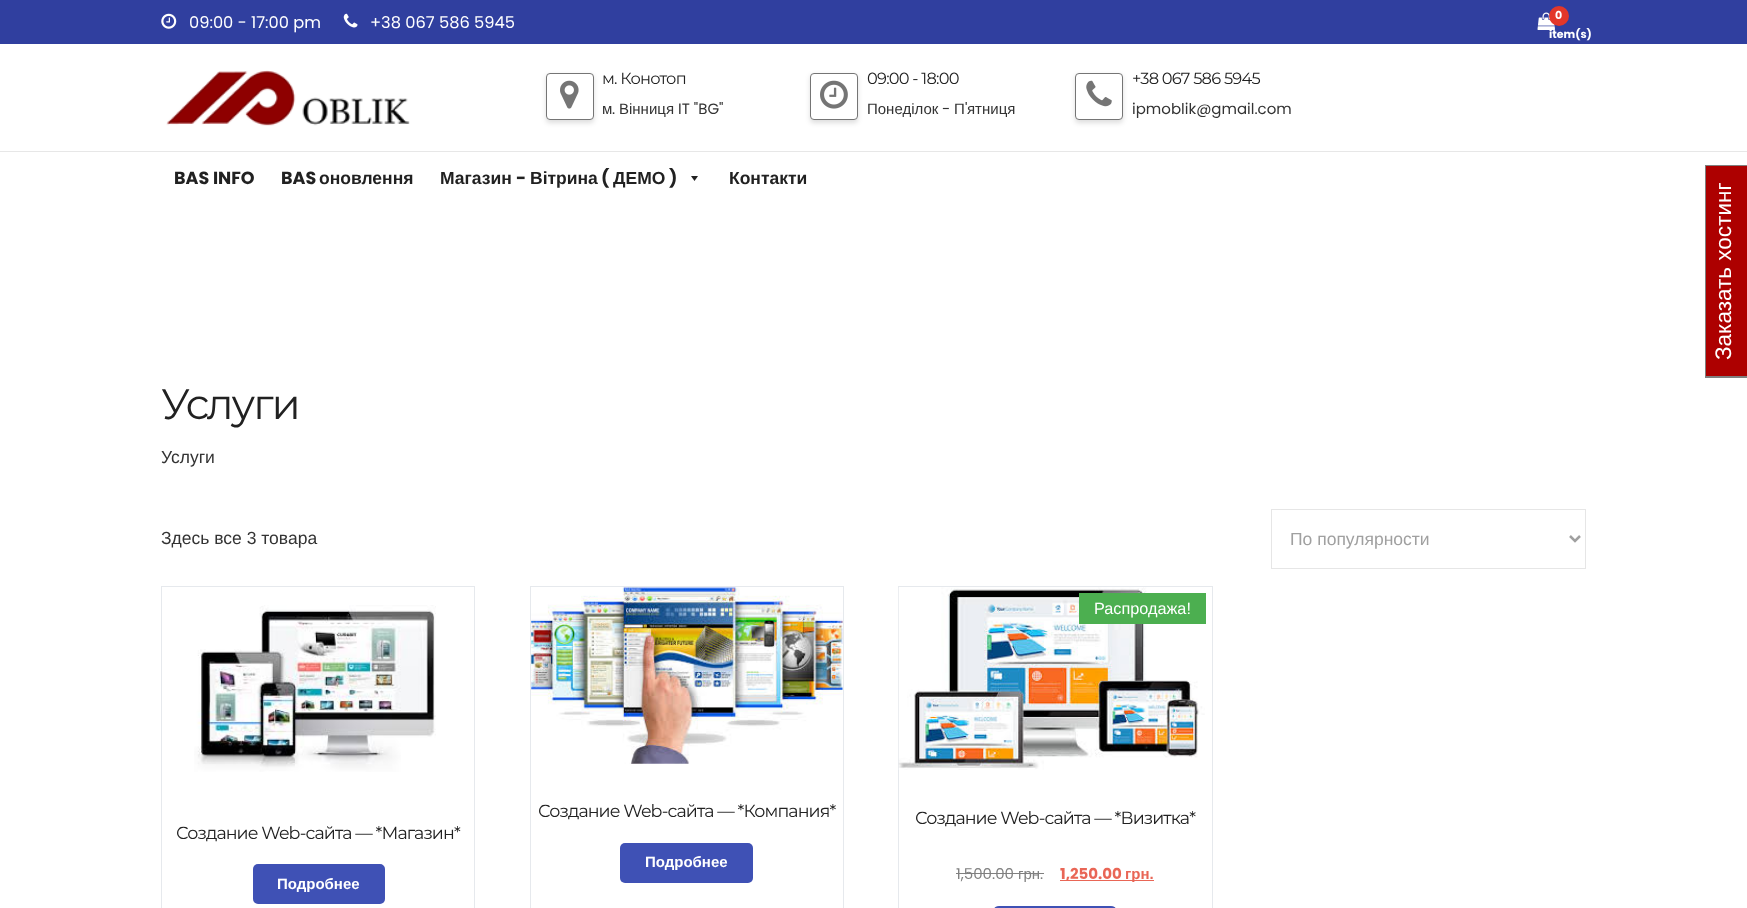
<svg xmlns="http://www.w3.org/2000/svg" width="1747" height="908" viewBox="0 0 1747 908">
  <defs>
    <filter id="blur1" x="-50%" y="-200%" width="200%" height="500%"><feGaussianBlur stdDeviation="2.5"/></filter>
  </defs>
  <rect width="100%" height="100%" fill="#ffffff"/>
  <rect x="0" y="0" width="1747" height="44" fill="#303f9f"/>
  <image x="161" y="13" width="16" height="16" href="img1.png"/>
  <text x="189" y="28" font-family="Poppins" font-size="16.25" fill="#ffffff">09:00 - 17:00 pm</text>
  <image x="343" y="13" width="15" height="15" href="img2.png"/>
  <text x="370" y="28" font-family="Poppins" font-size="16.25" fill="#ffffff">+38 067 586 5945</text>
  <image x="1537" y="12" width="18" height="18" href="img3.png"/>
  <circle cx="1559" cy="16" r="10" fill="#e33729"/>
  <text x="1555" y="19" font-family="Poppins" font-size="11" font-weight="bold" fill="#ffffff">0</text>
  <text x="1549" y="38" font-family="Poppins" font-size="11" font-weight="bold" fill="#ffffff">item(s)</text>
  <image x="166" y="70" width="244" height="56" href="img4.png"/>
  <rect x="546" y="75" width="48" height="48" rx="4" fill="#000000" fill-opacity="0.13" filter="url(#blur1)"/>
  <rect x="546.5" y="73.5" width="47" height="46" rx="3.5" fill="#ffffff" stroke="#757575"/>
  <image x="560" y="80" width="19" height="29" href="img5.png"/>
  <text x="602" y="84" font-family="Montserrat" font-size="16.25" letter-spacing="-0.75" fill="#212121">м. Конотоп</text>
  <text x="602" y="114" font-family="Liberation Sans" font-size="15" fill="#333333">м</text>
  <text x="612" y="114" font-family="Poppins" font-size="15" fill="#333333">.</text>
  <text x="619" y="114" font-family="Liberation Sans" font-size="15" fill="#333333">Вінниця</text>
  <text x="678" y="114" font-family="Poppins" font-size="15" fill="#333333">IT "BG"</text>
  <rect x="810" y="75" width="48" height="48" rx="4" fill="#000000" fill-opacity="0.13" filter="url(#blur1)"/>
  <rect x="810.5" y="73.5" width="47" height="46" rx="3.5" fill="#ffffff" stroke="#757575"/>
  <image x="820" y="80" width="28" height="29" href="img6.png"/>
  <text x="867" y="84" font-family="Montserrat" font-size="16.25" letter-spacing="-0.75" fill="#212121">09:00 - 18:00</text>
  <text x="867" y="114" font-family="Liberation Sans" font-size="15" fill="#333333">Понеділок</text>
  <text x="942" y="114" font-family="Poppins" font-size="15" fill="#333333">-</text>
  <text x="954" y="114" font-family="Liberation Sans" font-size="15" fill="#333333">П</text>
  <text x="965" y="114" font-family="Poppins" font-size="15" fill="#333333">'</text>
  <text x="967" y="114" font-family="Liberation Sans" font-size="15" fill="#333333">ятниця</text>
  <rect x="1075" y="75" width="48" height="48" rx="4" fill="#000000" fill-opacity="0.13" filter="url(#blur1)"/>
  <rect x="1075.5" y="73.5" width="47" height="46" rx="3.5" fill="#ffffff" stroke="#757575"/>
  <image x="1086" y="80" width="26" height="27" href="img7.png"/>
  <text x="1132" y="84" font-family="Montserrat" font-size="16.25" letter-spacing="-0.75" fill="#212121">+38 067 586 5945</text>
  <text x="1132" y="114" font-family="Poppins" font-size="15" fill="#333333">ipmoblik@gmail.com</text>
  <rect x="0" y="151" width="1747" height="1" fill="#e7e7e7"/>
  <text x="174" y="184" font-family="Poppins" font-size="17.5" font-weight="bold" fill="#212121">BAS INFO</text>
  <text x="281" y="184" font-family="Poppins" font-size="17.5" font-weight="bold" fill="#212121">BAS</text>
  <text x="319" y="184" font-family="Liberation Sans" font-size="17.5" font-weight="bold" fill="#212121">оновлення</text>
  <text x="440" y="184" font-family="Liberation Sans" font-size="17.5" font-weight="bold" fill="#212121">Магазин</text>
  <text x="516" y="184" font-family="Poppins" font-size="17.5" font-weight="bold" fill="#212121">-</text>
  <text x="530" y="184" font-family="Liberation Sans" font-size="17.5" font-weight="bold" fill="#212121">Вітрина</text>
  <text x="601" y="184" font-family="Poppins" font-size="17.5" font-weight="bold" fill="#212121">(</text>
  <text x="613" y="184" font-family="Liberation Sans" font-size="17.5" font-weight="bold" fill="#212121">ДЕМО</text>
  <text x="669" y="184" font-family="Poppins" font-size="17.5" font-weight="bold" fill="#212121">)</text>
  <path d="M698 176L694.5 181L691 176Z" fill="#222222"/>
  <text x="729" y="184" font-family="Liberation Sans" font-size="17.5" font-weight="bold" fill="#212121">Контакти</text>
  <text x="161" y="419" font-family="Montserrat" font-size="42.5" letter-spacing="-2" fill="#212121">Услуги</text>
  <text x="161" y="463" font-family="Liberation Sans" font-size="17.5" fill="#333333">Услуги</text>
  <text x="161" y="544" font-family="Liberation Sans" font-size="17.5" fill="#333333">Здесь все 3 товара</text>
  <rect x="1271.5" y="509.5" width="314" height="59" fill="none" stroke="#e6e6e6"/>
  <path d="M1570 536L1575 541L1580 536" fill="none" stroke="#a0a0a0" stroke-width="2.5"/>
  <text x="1290" y="545" font-family="Liberation Sans" font-size="17.5" fill="#a0a0a0">По популярности</text>
  <rect x="161.5" y="586.5" width="313" height="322" fill="none" stroke="#e6e9ed"/>
  <image x="194" y="605" width="242" height="167" href="img8.png"/>
  <text x="176" y="839" font-family="Montserrat" font-size="17.5" letter-spacing="-0.9" fill="#212121">Создание Web-сайта — *Магазин*</text>
  <rect x="253" y="864" width="132" height="40" rx="5" fill="#3f51b5"/>
  <text x="277" y="889" font-family="Liberation Sans" font-size="15" font-weight="bold" fill="#ffffff">Подробнее</text>
  <rect x="530.5" y="586.5" width="313" height="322" fill="none" stroke="#e6e9ed"/>
  <image x="531" y="587" width="312" height="177" href="img9.png"/>
  <text x="538" y="817" font-family="Montserrat" font-size="17.5" letter-spacing="-0.9" fill="#212121">Создание Web-сайта — *Компания*</text>
  <rect x="620" y="843" width="133" height="40" rx="5" fill="#3f51b5"/>
  <text x="645" y="867" font-family="Liberation Sans" font-size="15" font-weight="bold" fill="#ffffff">Подробнее</text>
  <rect x="898.5" y="586.5" width="314" height="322" fill="none" stroke="#e6e9ed"/>
  <image x="898" y="587" width="307" height="183" href="img10.png"/>
  <rect x="1079" y="593" width="127" height="31" fill="#4caf50"/>
  <text x="1094" y="614" font-family="Liberation Sans" font-size="16.25" fill="#ffffff">Распродажа!</text>
  <text x="915" y="824" font-family="Montserrat" font-size="17.5" letter-spacing="-0.9" fill="#212121">Создание Web-сайта — *Визитка*</text>
  <text x="956" y="879" font-family="Poppins" font-size="15" fill="#808080">1,500.00</text>
  <rect x="956" y="873" width="63" height="1" fill="#808080"/>
  <text x="1018" y="879" font-family="Liberation Sans" font-size="15" fill="#808080">грн</text>
  <rect x="1019" y="873" width="25" height="1" fill="#808080"/>
  <text x="1040" y="879" font-family="Poppins" font-size="15" fill="#808080">.</text>
  <rect x="1060" y="880" width="94" height="1" fill="#e96656"/>
  <text x="1060" y="879" font-family="Poppins" font-size="15" font-weight="bold" fill="#e96656">1,250.00</text>
  <text x="1125" y="879" font-family="Liberation Sans" font-size="15" font-weight="bold" fill="#e96656">грн.</text>
  <rect x="994" y="906" width="122" height="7" rx="5" fill="#3f51b5"/>
  <rect x="1706" y="166" width="41" height="210" fill="#ad0000"/>
  <rect x="1705" y="165" width="1" height="213" fill="#7f7f7f"/>
  <rect x="1705" y="165" width="42" height="1" fill="#7f7f7f"/>
  <rect x="1705" y="376" width="42" height="2" fill="#7f7f7f"/>
  <text x="1731" y="360" transform="rotate(-90 1731 360)" font-family="Liberation Sans" font-size="22.5" fill="#ffffff">Заказать хостинг</text>
</svg>
